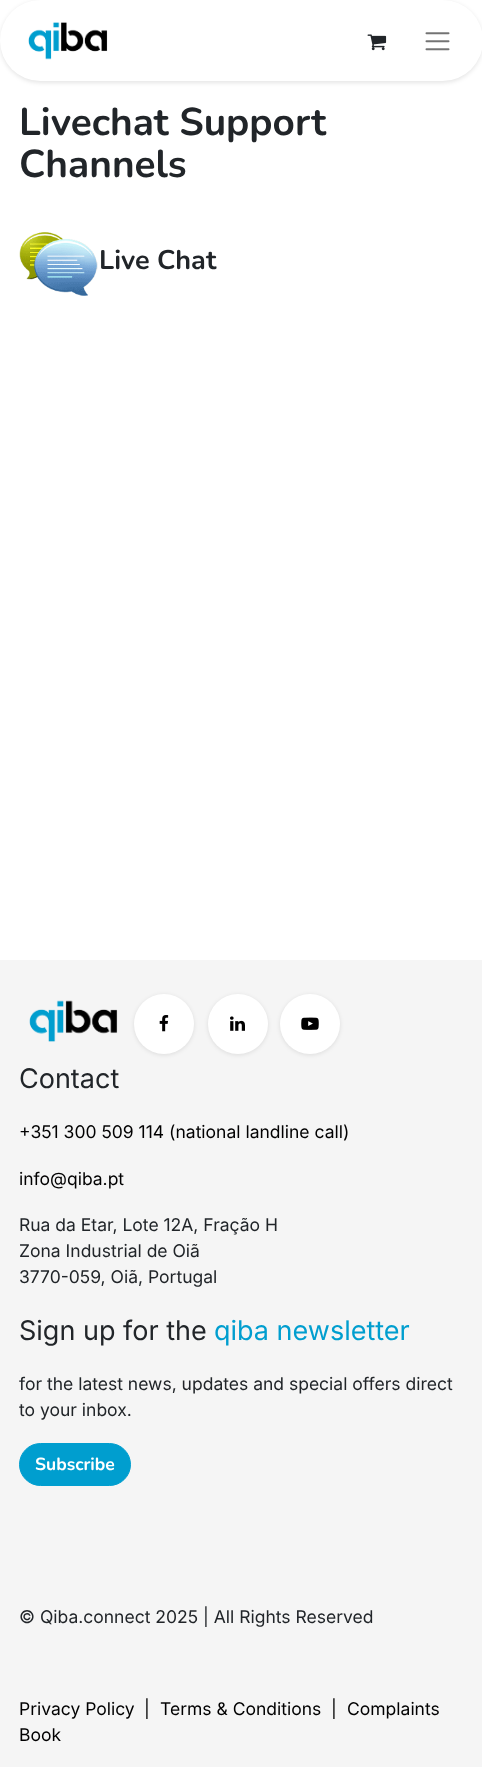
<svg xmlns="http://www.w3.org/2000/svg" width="482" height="1767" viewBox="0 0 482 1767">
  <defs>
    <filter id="blur1" x="-50%" y="-200%" width="200%" height="500%"><feGaussianBlur stdDeviation="2"/></filter>
  </defs>
  <rect width="100%" height="100%" fill="#ffffff"/>
  <rect x="0" y="1" width="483" height="82" rx="41" fill="#000000" fill-opacity="0.1" filter="url(#blur1)"/>
  <rect x="0" y="0" width="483" height="81" rx="40.5" fill="#ffffff"/>
  <image x="28" y="22" width="80" height="38" href="img1.png"/>
  <image x="367" y="34" width="20" height="17" href="img2.png"/>
  <image x="425" y="32" width="25" height="19" href="img3.png"/>
  <text x="19" y="135" font-family="Nunito" font-size="38.75" font-weight="bold" fill="#212529">Livechat Support</text>
  <text x="19" y="177" font-family="Nunito" font-size="38.75" font-weight="bold" fill="#212529">Channels</text>
  <image x="19" y="232" width="79" height="64" href="img4.png"/>
  <text x="99" y="269" font-family="Nunito" font-size="27" font-weight="bold" fill="#212529">Live Chat</text>
  <rect x="0" y="960" width="482" height="807" fill="#f5f5f5"/>
  <image x="29" y="1000" width="89" height="42" href="img5.png"/>
  <rect x="134" y="995" width="60" height="60" rx="30" fill="#000000" fill-opacity="0.1" filter="url(#blur1)"/>
  <circle cx="164" cy="1024" r="30" fill="#ffffff"/>
  <image x="159" y="1015" width="10" height="17" href="img6.png"/>
  <rect x="208" y="995" width="60" height="60" rx="30" fill="#000000" fill-opacity="0.1" filter="url(#blur1)"/>
  <circle cx="238" cy="1024" r="30" fill="#ffffff"/>
  <image x="230" y="1016" width="15" height="15" href="img7.png"/>
  <rect x="280" y="995" width="60" height="60" rx="30" fill="#000000" fill-opacity="0.1" filter="url(#blur1)"/>
  <circle cx="310" cy="1024" r="30" fill="#ffffff"/>
  <image x="301" y="1017" width="18" height="13" href="img8.png"/>
  <text x="19" y="1088" font-family="Inter" font-size="27" fill="#212529">Contact</text>
  <text x="19" y="1138" font-family="Inter" font-size="17.5" fill="#010001">+351 300 509 114 (national landline call)</text>
  <text x="19" y="1185" font-family="Inter" font-size="17.5" fill="#010001">info@qiba.pt</text>
  <text x="19" y="1231" font-family="Inter" font-size="17.5" fill="#212529">Rua da Etar, Lote 12A, Fração H</text>
  <text x="19" y="1257" font-family="Inter" font-size="17.5" fill="#212529">Zona Industrial de Oiã</text>
  <text x="19" y="1283" font-family="Inter" font-size="17.5" fill="#212529">3770-059, Oiã, Portugal</text>
  <text x="19" y="1340" font-family="Inter" font-size="27" fill="#212529">Sign up for the</text>
  <text x="214" y="1340" font-family="Inter" font-size="27" fill="#009ecf">qiba newsletter</text>
  <text x="19" y="1390" font-family="Inter" font-size="17.5" fill="#212529">for the latest news, updates and special offers direct</text>
  <text x="19" y="1416" font-family="Inter" font-size="17.5" fill="#212529">to your inbox.</text>
  <rect x="19.5" y="1443.5" width="111" height="42" rx="21" fill="#009ecf" stroke="#009ecf"/>
  <text x="35" y="1470" font-family="Nunito" font-size="17.5" font-weight="bold" fill="#ffffff">Subscribe</text>
  <text x="19" y="1623" font-family="Inter" font-size="17.5" fill="#212529">© Qiba.connect 2025 | All Rights Reserved</text>
  <text x="19" y="1715" font-family="Inter" font-size="17.5" fill="#010001">Privacy Policy</text>
  <text x="144" y="1715" font-family="Inter" font-size="17.5" fill="#010001">|</text>
  <text x="160" y="1715" font-family="Inter" font-size="17.5" fill="#010001">Terms &amp; Conditions</text>
  <text x="331" y="1715" font-family="Inter" font-size="17.5" fill="#010001">|</text>
  <text x="347" y="1715" font-family="Inter" font-size="17.5" fill="#010001">Complaints</text>
  <text x="19" y="1741" font-family="Inter" font-size="17.5" fill="#010001">Book</text>
</svg>
